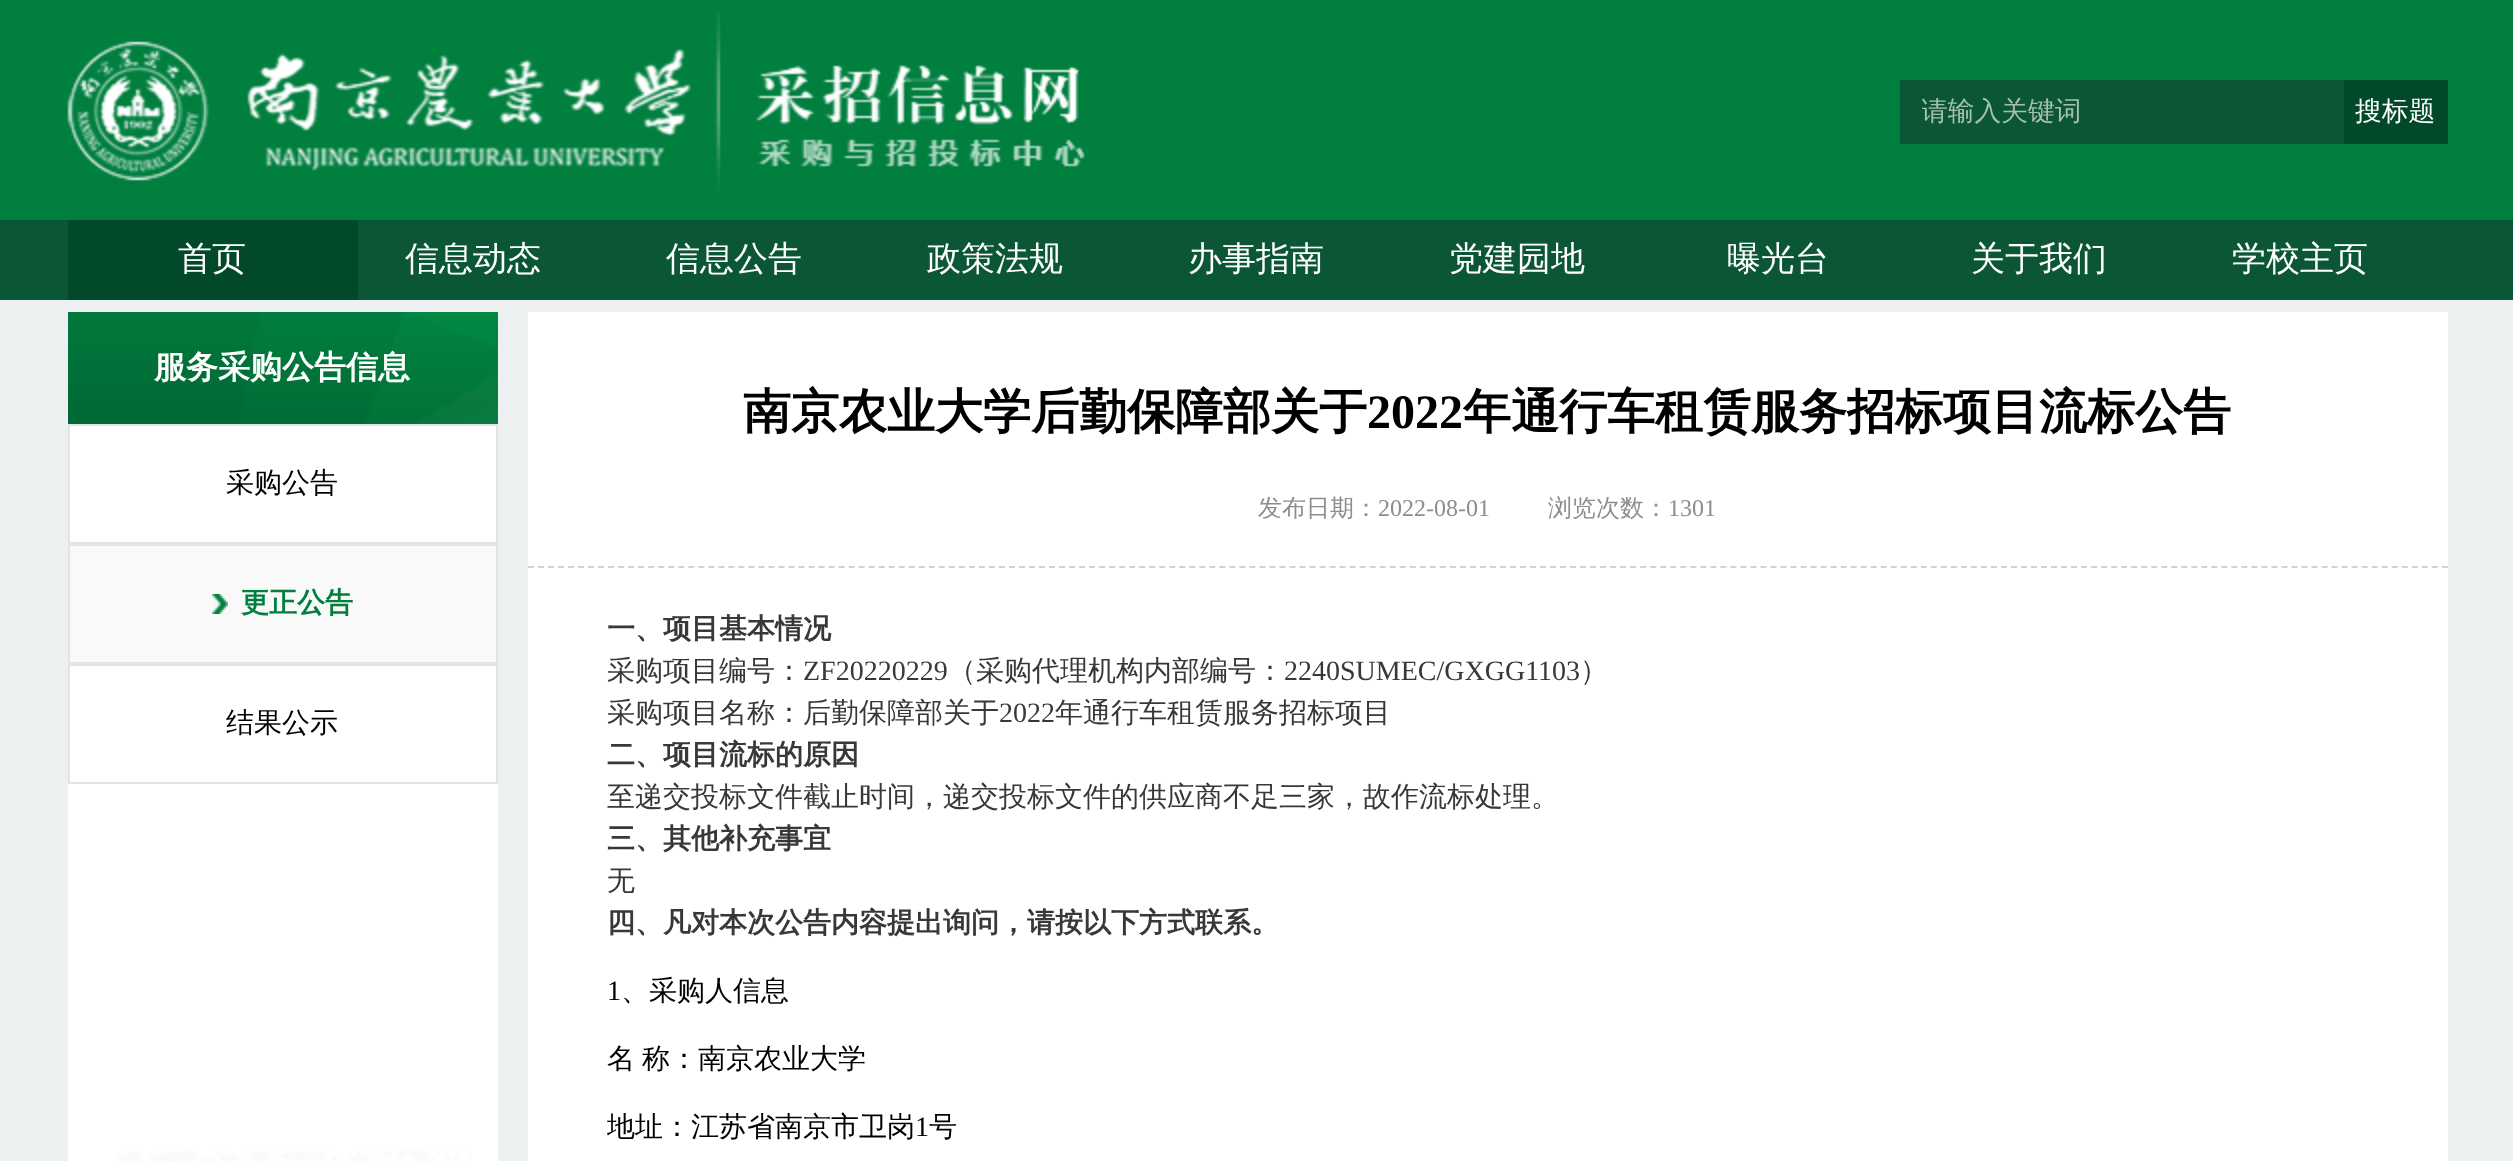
<svg xmlns="http://www.w3.org/2000/svg" width="2513" height="1161" viewBox="0 0 2513 1161">
  <defs>
    <clipPath id="clip1"><rect x="1922" y="82" width="420" height="60"/></clipPath>
  </defs>
  <rect width="100%" height="100%" fill="#ecf0f1"/>
  <rect x="0" y="0" width="2513" height="220" fill="#017f3f"/>
  <image x="67" y="10" width="1018" height="183" href="img1.png"/>
  <rect x="1900" y="80" width="444" height="64" fill="#0b5635"/>
  <g clip-path="url(#clip1)">
    <text x="1921" y="120" font-family="WenQuanYi Zen Hei" font-size="26.75" font-weight="500" fill="#a6bfb2">请输入关键词</text>
  </g>
  <rect x="2344" y="80" width="104" height="64" fill="#02492a"/>
  <text x="2355" y="120" font-family="WenQuanYi Zen Hei" font-size="26.75" font-weight="500" fill="#ffffff">搜标题</text>
  <rect x="0" y="220" width="2513" height="80" fill="#0b5635"/>
  <rect x="68" y="220" width="290" height="80" fill="#02492a"/>
  <text x="178" y="270" font-family="WenQuanYi Zen Hei" font-size="34" font-weight="500" fill="#ffffff">首页</text>
  <text x="405" y="270" font-family="WenQuanYi Zen Hei" font-size="34" font-weight="500" fill="#ffffff">信息动态</text>
  <text x="666" y="270" font-family="WenQuanYi Zen Hei" font-size="34" font-weight="500" fill="#ffffff">信息公告</text>
  <text x="927" y="270" font-family="WenQuanYi Zen Hei" font-size="34" font-weight="500" fill="#ffffff">政策法规</text>
  <text x="1188" y="270" font-family="WenQuanYi Zen Hei" font-size="34" font-weight="500" fill="#ffffff">办事指南</text>
  <text x="1449" y="270" font-family="WenQuanYi Zen Hei" font-size="34" font-weight="500" fill="#ffffff">党建园地</text>
  <text x="1727" y="270" font-family="WenQuanYi Zen Hei" font-size="34" font-weight="500" fill="#ffffff">曝光台</text>
  <text x="1971" y="270" font-family="WenQuanYi Zen Hei" font-size="34" font-weight="500" fill="#ffffff">关于我们</text>
  <text x="2232" y="270" font-family="WenQuanYi Zen Hei" font-size="34" font-weight="500" fill="#ffffff">学校主页</text>
  <rect x="68" y="426" width="430" height="735" fill="#ffffff"/>
  <image x="110" y="1151" width="362" height="10" href="img2.png"/>
  <image x="68" y="312" width="430" height="112" href="img3.png"/>
  <text x="154" y="378" font-family="WenQuanYi Zen Hei" font-size="32" font-weight="bold" fill="#ffffff">服务采购公告信息</text>
  <rect x="69" y="425" width="428" height="118" fill="none" stroke="#e4e4e4" stroke-width="2"/>
  <text x="226" y="492" font-family="WenQuanYi Zen Hei" font-size="28" font-weight="500" fill="#000000">采购公告</text>
  <rect x="69" y="545" width="428" height="118" fill="#f9f9f9" stroke="#e4e4e4" stroke-width="2"/>
  <image x="212" y="594" width="16" height="20" href="img4.png"/>
  <text x="241" y="612" font-family="WenQuanYi Zen Hei" font-size="28" font-weight="bold" fill="#017f3f">更正公告</text>
  <rect x="69" y="665" width="428" height="118" fill="none" stroke="#e4e4e4" stroke-width="2"/>
  <text x="226" y="732" font-family="WenQuanYi Zen Hei" font-size="28" font-weight="500" fill="#000000">结果公示</text>
  <rect x="528" y="312" width="1920" height="849" fill="#ffffff"/>
  <text x="743" y="428" font-family="WenQuanYi Zen Hei" font-size="48" font-weight="bold" fill="#000000">南京农业大学后勤保障部关于</text>
  <text x="1367" y="428" font-family="Liberation Serif" font-size="48" font-weight="bold" fill="#000000">2022</text>
  <text x="1463" y="428" font-family="WenQuanYi Zen Hei" font-size="48" font-weight="bold" fill="#000000">年通行车租赁服务招标项目流标公告</text>
  <path d="M528 567H2448" fill="none" stroke="#d2d2d2" stroke-width="2" stroke-dasharray="6 4.02"/>
  <text x="1258" y="516" font-family="WenQuanYi Zen Hei" font-size="24" font-weight="500" fill="#8d8d8d">发布日期：</text>
  <text x="1378" y="516" font-family="Liberation Serif" font-size="24" fill="#8d8d8d">2022-08-01</text>
  <text x="1548" y="516" font-family="WenQuanYi Zen Hei" font-size="24" font-weight="500" fill="#8d8d8d">浏览次数：</text>
  <text x="1668" y="516" font-family="Liberation Serif" font-size="24" fill="#8d8d8d">1301</text>
  <text x="607" y="638" font-family="WenQuanYi Zen Hei" font-size="28" font-weight="bold" fill="#383838">一、项目基本情况</text>
  <text x="607" y="680" font-family="WenQuanYi Zen Hei" font-size="28" font-weight="500" fill="#383838">采购项目编号：</text>
  <text x="803" y="680" font-family="Liberation Serif" font-size="28" fill="#383838">ZF20220229</text>
  <text x="948" y="680" font-family="WenQuanYi Zen Hei" font-size="28" font-weight="500" fill="#383838">（采购代理机构内部编号：</text>
  <text x="1284" y="680" font-family="Liberation Serif" font-size="28" fill="#383838">2240SUMEC/GXGG1103</text>
  <text x="1580" y="680" font-family="WenQuanYi Zen Hei" font-size="28" font-weight="500" fill="#383838">）</text>
  <text x="607" y="722" font-family="WenQuanYi Zen Hei" font-size="28" font-weight="500" fill="#383838">采购项目名称：后勤保障部关于</text>
  <text x="999" y="722" font-family="Liberation Serif" font-size="28" fill="#383838">2022</text>
  <text x="1055" y="722" font-family="WenQuanYi Zen Hei" font-size="28" font-weight="500" fill="#383838">年通行车租赁服务招标项目</text>
  <text x="607" y="764" font-family="WenQuanYi Zen Hei" font-size="28" font-weight="bold" fill="#383838">二、项目流标的原因</text>
  <text x="607" y="806" font-family="WenQuanYi Zen Hei" font-size="28" font-weight="500" fill="#383838">至递交投标文件截止时间，递交投标文件的供应商不足三家，故作流标处理。</text>
  <text x="607" y="848" font-family="WenQuanYi Zen Hei" font-size="28" font-weight="bold" fill="#383838">三、其他补充事宜</text>
  <text x="607" y="890" font-family="WenQuanYi Zen Hei" font-size="28" font-weight="500" fill="#383838">无</text>
  <text x="607" y="932" font-family="WenQuanYi Zen Hei" font-size="28" font-weight="bold" fill="#383838">四、凡对本次公告内容提出询问，请按以下方式联系。</text>
  <text x="607" y="1000" font-family="Liberation Serif" font-size="28" fill="#000000">1</text>
  <text x="621" y="1000" font-family="WenQuanYi Zen Hei" font-size="28" font-weight="500" fill="#000000">、采购人信息</text>
  <text x="607" y="1068" font-family="WenQuanYi Zen Hei" font-size="28" font-weight="500" fill="#000000">名</text>
  <text x="642" y="1068" font-family="WenQuanYi Zen Hei" font-size="28" font-weight="500" fill="#000000">称：南京农业大学</text>
  <text x="607" y="1136" font-family="WenQuanYi Zen Hei" font-size="28" font-weight="500" fill="#000000">地址：江苏省南京市卫岗</text>
  <text x="915" y="1136" font-family="Liberation Serif" font-size="28" fill="#000000">1</text>
  <text x="929" y="1136" font-family="WenQuanYi Zen Hei" font-size="28" font-weight="500" fill="#000000">号</text>
</svg>
